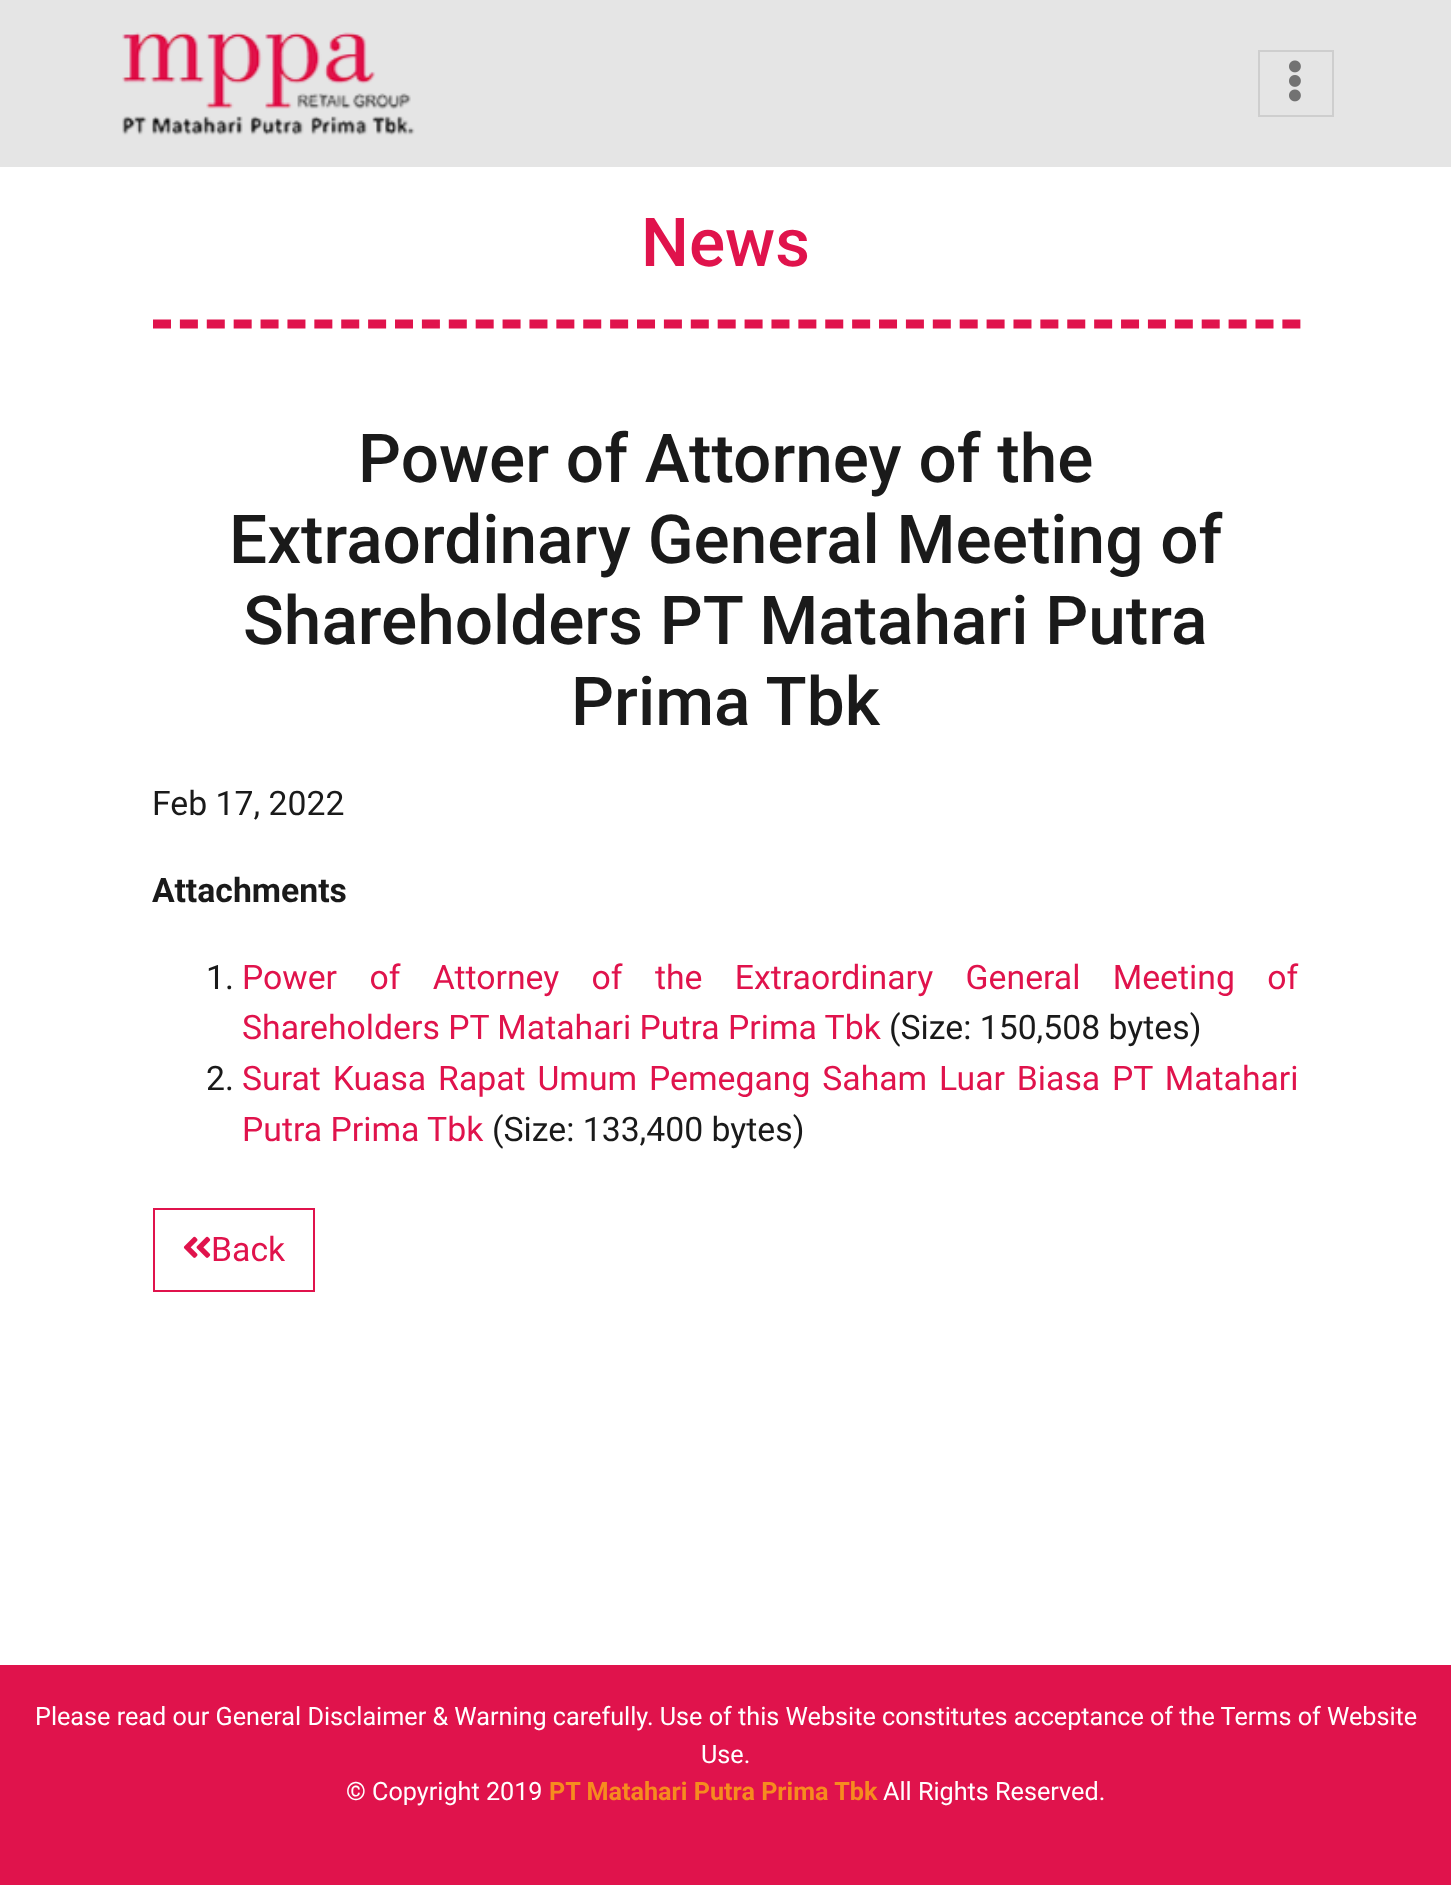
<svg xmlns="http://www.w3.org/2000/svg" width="1451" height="1885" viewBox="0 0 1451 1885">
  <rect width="100%" height="100%" fill="#ffffff"/>
  <rect x="0" y="0" width="1451" height="167" fill="#e5e5e5"/>
  <image x="122" y="32" width="293" height="104" href="img1.png"/>
  <rect x="1259" y="51" width="74" height="65" fill="none" stroke="#cecece" stroke-width="2"/>
  <image x="1289" y="60" width="12" height="42" href="img2.png"/>
  <text x="641" y="266" font-family="Roboto" font-size="67.5" font-weight="500" fill="#e0134c">News</text>
  <path d="M153 324H1300.5" fill="none" stroke="#e0134c" stroke-width="9" stroke-dasharray="18 8.89"/>
  <text x="358" y="482" font-family="Roboto" font-size="67.5" font-weight="500" fill="#1a1a1a">Power of Attorney of the</text>
  <text x="229" y="563" font-family="Roboto" font-size="67.5" font-weight="500" fill="#1a1a1a">Extraordinary General Meeting of</text>
  <text x="243" y="644" font-family="Roboto" font-size="67.5" font-weight="500" fill="#1a1a1a">Shareholders PT Matahari Putra</text>
  <text x="571" y="725" font-family="Roboto" font-size="67.5" font-weight="500" fill="#1a1a1a">Prima Tbk</text>
  <text x="152" y="815" font-family="Roboto" font-size="33.75" fill="#1a1a1a">Feb 17, 2022</text>
  <text x="152" y="902" font-family="Roboto" font-size="33.75" font-weight="bold" fill="#1a1a1a">Attachments</text>
  <text x="206" y="989" font-family="Roboto" font-size="33.75" fill="#1a1a1a">1.</text>
  <text x="242" y="989" word-spacing="24" font-family="Roboto" font-size="33.75" fill="#e0134c">Power of Attorney of the Extraordinary General Meeting of</text>
  <text x="242" y="1039" font-family="Roboto" font-size="33.75" fill="#e0134c">Shareholders PT Matahari Putra Prima Tbk</text>
  <text x="889" y="1039" font-family="Roboto" font-size="33.75" fill="#1a1a1a">(Size: 150,508 bytes)</text>
  <text x="206" y="1090" font-family="Roboto" font-size="33.75" fill="#1a1a1a">2.</text>
  <text x="242" y="1090" word-spacing="3.5" font-family="Roboto" font-size="33.75" fill="#e0134c">Surat Kuasa Rapat Umum Pemegang Saham Luar Biasa PT Matahari</text>
  <text x="242" y="1141" font-family="Roboto" font-size="33.75" fill="#e0134c">Putra Prima Tbk</text>
  <text x="492" y="1141" font-family="Roboto" font-size="33.75" fill="#1a1a1a">(Size: 133,400 bytes)</text>
  <rect x="154" y="1209" width="160" height="82" fill="none" stroke="#e0134c" stroke-width="2"/>
  <image x="183" y="1236" width="28" height="22" href="img3.png"/>
  <text x="211" y="1261" font-family="Roboto" font-size="33.75" fill="#e0134c">Back</text>
  <rect x="0" y="1665" width="1451" height="220" fill="#e0134c"/>
  <text x="35" y="1725" font-family="Roboto" font-size="25.2" fill="#ffffff">Please read our General Disclaimer &amp; Warning carefully. Use of this Website constitutes acceptance of the Terms of Website</text>
  <text x="701" y="1763" font-family="Roboto" font-size="25.2" fill="#ffffff">Use.</text>
  <text x="346" y="1800" font-family="Roboto" font-size="25.2" fill="#ffffff">© Copyright 2019</text>
  <text x="549" y="1800" font-family="Roboto" font-size="25.2" font-weight="bold" fill="#f68b1f">PT Matahari Putra Prima Tbk</text>
  <text x="883" y="1800" font-family="Roboto" font-size="25.2" fill="#ffffff">All Rights Reserved.</text>
</svg>
